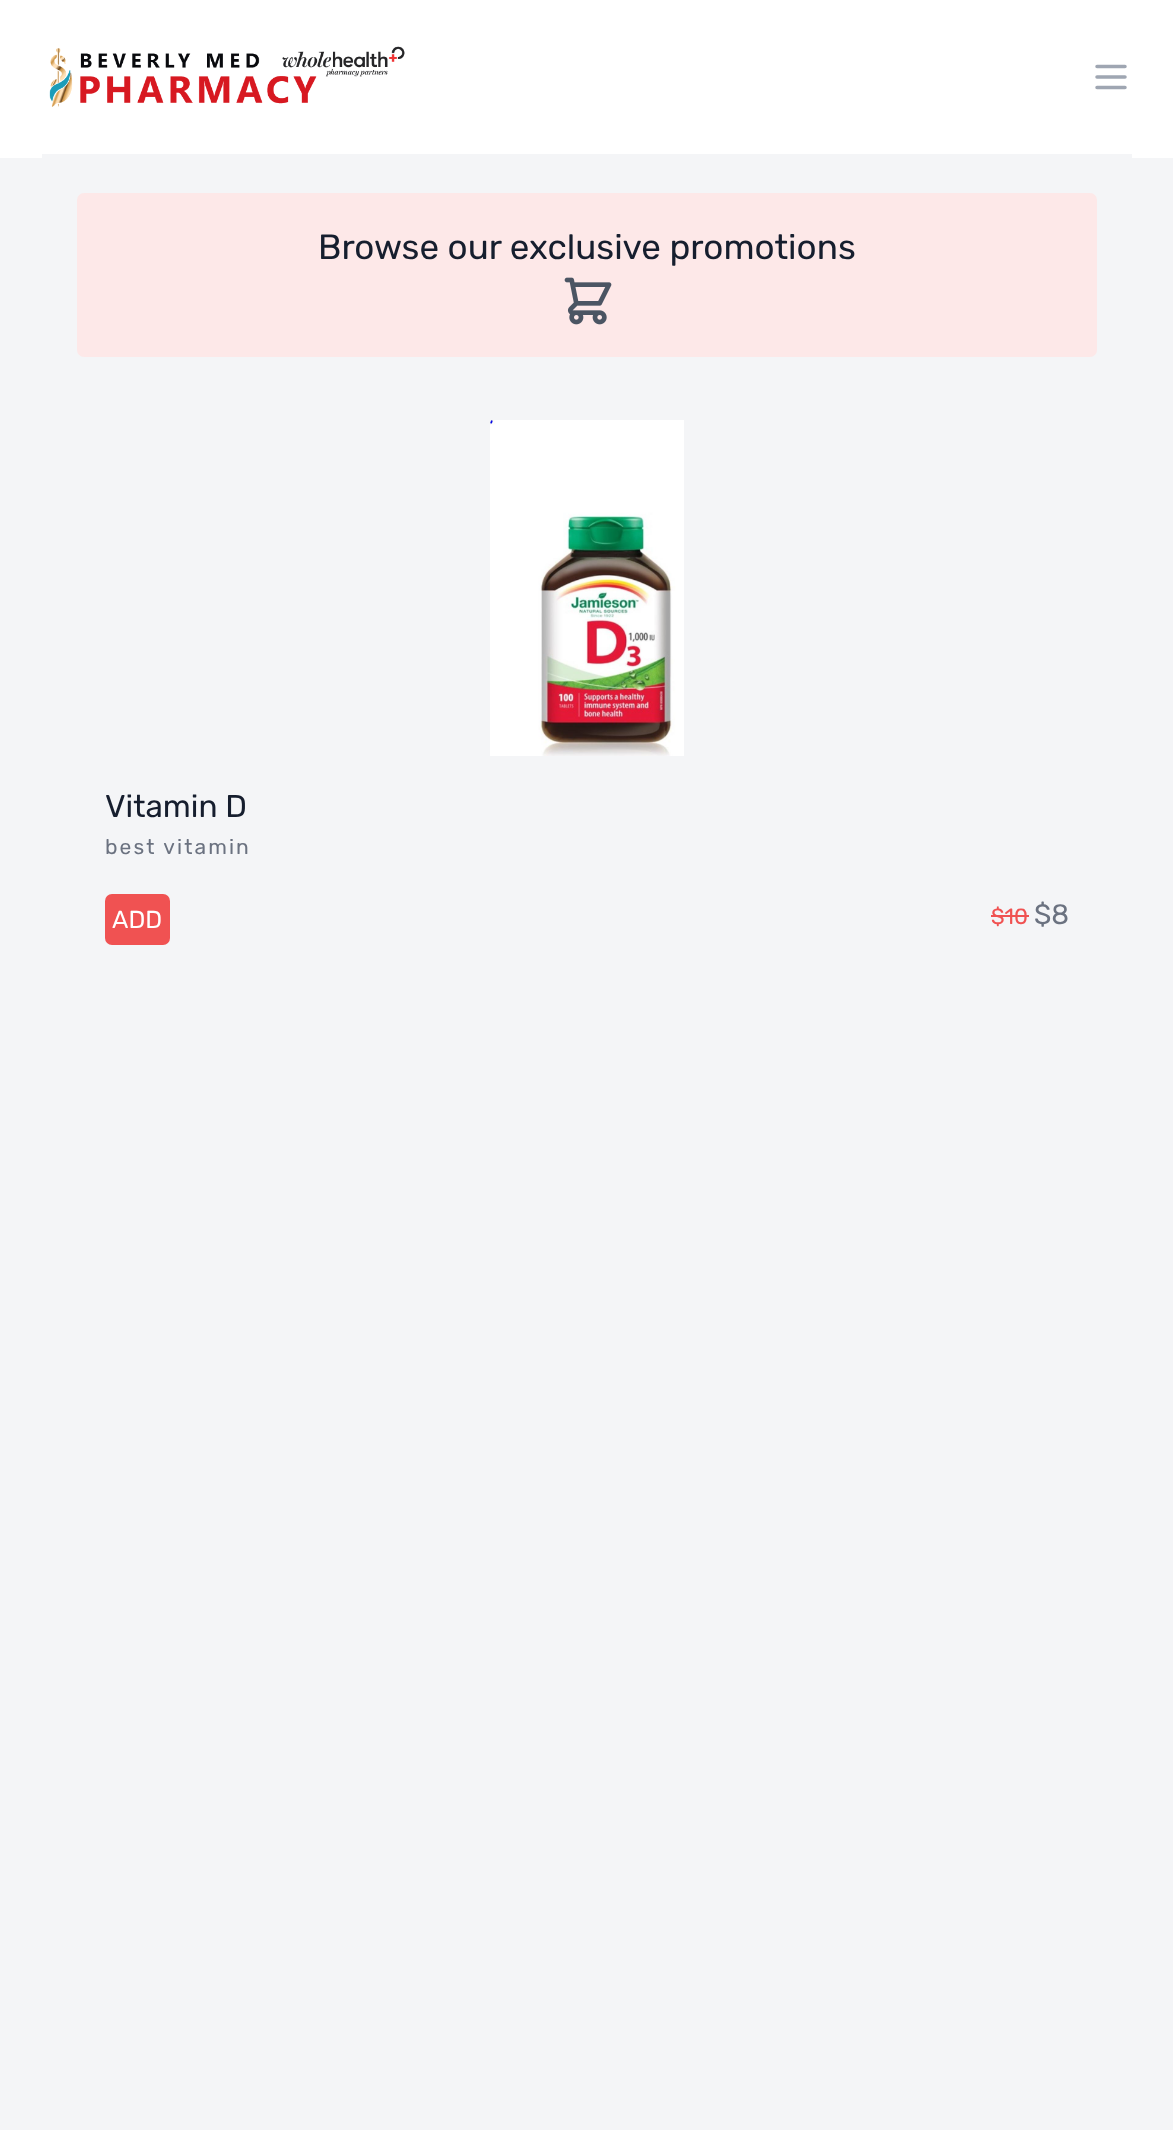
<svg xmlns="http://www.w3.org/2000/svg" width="1173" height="2130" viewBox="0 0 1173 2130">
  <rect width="100%" height="100%" fill="#f4f5f7"/>
  <rect x="0" y="0" width="1173" height="158" fill="#ffffff"/>
  <rect x="42" y="154" width="1090" height="4" fill="#f4f5f7"/>
  <image x="49" y="46" width="356" height="61" href="img1.png"/>
  <path d="M1097 66.5H1125M1097 77H1125M1097 87.5H1125" fill="none" stroke="#9fa6b2" stroke-width="3.5" stroke-linecap="round" stroke-linejoin="round"/>
  <rect x="77" y="193" width="1020" height="164" rx="7" fill="#fde8e8"/>
  <text x="318" y="259" font-family="Rubik" font-size="35" font-weight="300" fill="#161e2e">Browse our exclusive promotions</text>
  <image x="564" y="277" width="48" height="48" href="img2.png"/>
  <image x="490" y="420" width="194" height="336" href="img3.png"/>
  <text x="105" y="817" font-family="Rubik" font-size="31.5" font-weight="300" fill="#161e2e">Vitamin D</text>
  <text x="105" y="854" font-family="Rubik" font-size="21" font-weight="300" letter-spacing="2.1" fill="#6b7280">best vitamin</text>
  <rect x="105" y="894" width="65" height="51" rx="7" fill="#f05252"/>
  <text x="112" y="928" font-family="Rubik" font-size="24.5" font-weight="300" fill="#ffffff">ADD</text>
  <text x="991" y="924" font-family="Rubik" font-size="22" font-weight="300" fill="#f05252">$10</text>
  <rect x="991" y="915" width="38" height="2" fill="#f05252"/>
  <text x="1034" y="924" font-family="Rubik" font-size="28" font-weight="300" fill="#6b7280">$8</text>
</svg>
